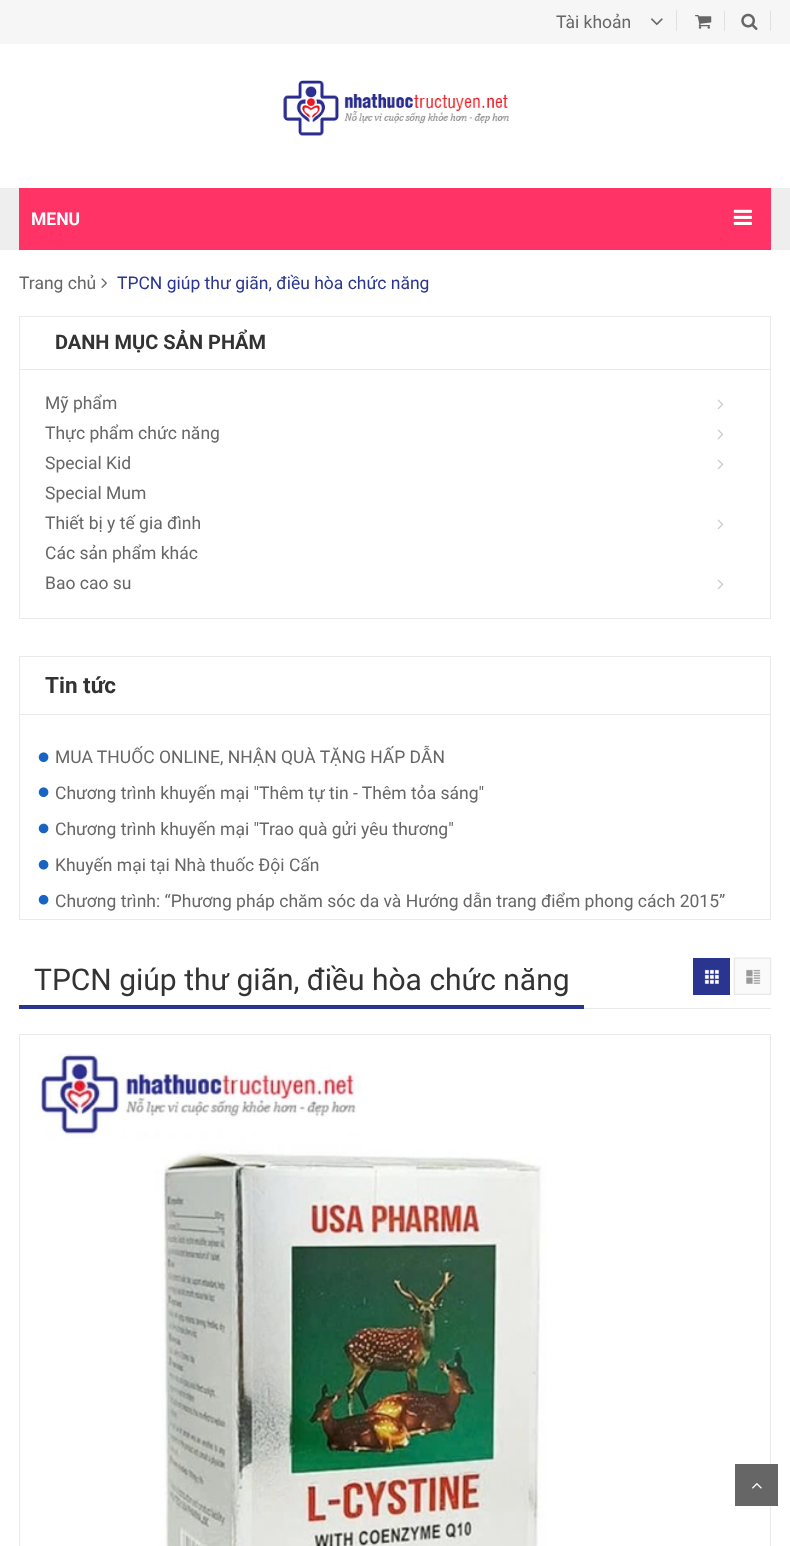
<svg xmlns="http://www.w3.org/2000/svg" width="790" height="1546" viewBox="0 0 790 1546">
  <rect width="100%" height="100%" fill="#ffffff"/>
  <rect x="0" y="0" width="790" height="44" fill="#f6f6f6"/>
  <text x="556" y="28" font-family="Roboto" font-size="17.5" fill="#666666">Tài khoản</text>
  <rect x="676" y="10" width="1" height="21" fill="#e0e0e0"/>
  <image x="651" y="18" width="12" height="8" href="img1.png"/>
  <rect x="724" y="11" width="1" height="20" fill="#e0e0e0"/>
  <image x="695" y="15" width="17" height="14" href="img2.png"/>
  <rect x="770" y="11" width="1" height="20" fill="#e0e0e0"/>
  <image x="741" y="13" width="17" height="17" href="img3.png"/>
  <image x="283" y="80" width="226" height="56" href="img4.png"/>
  <rect x="0" y="188" width="790" height="62" fill="#eeeeee"/>
  <rect x="19" y="188" width="752" height="62" fill="#ff3366"/>
  <text x="31" y="225" font-family="Roboto" font-size="17.5" font-weight="bold" fill="#ffffff">MENU</text>
  <image x="733" y="209" width="19" height="16" href="img5.png"/>
  <text x="19" y="289" font-family="Roboto" font-size="17.5" fill="#666666">Trang chủ</text>
  <image x="101" y="278" width="6" height="10" href="img6.png"/>
  <text x="117" y="289" font-family="Roboto" font-size="17.5" fill="#2a3590">TPCN giúp thư giãn, điều hòa chức năng</text>
  <rect x="19.5" y="316.5" width="751" height="302" fill="none" stroke="#eaeaea"/>
  <rect x="20" y="369" width="750" height="1" fill="#eaeaea"/>
  <text x="55" y="349" font-family="Roboto" font-size="20" font-weight="bold" fill="#333333">DANH MỤC SẢN PHẨM</text>
  <text x="45" y="409" font-family="Roboto" font-size="17.5" fill="#666666">Mỹ phẩm</text>
  <image x="717" y="399" width="7" height="11" href="img7.png"/>
  <text x="45" y="439" font-family="Roboto" font-size="17.5" fill="#666666">Thực phẩm chức năng</text>
  <image x="717" y="429" width="7" height="11" href="img7.png"/>
  <text x="45" y="469" font-family="Roboto" font-size="17.5" fill="#666666">Special Kid</text>
  <image x="717" y="459" width="7" height="11" href="img7.png"/>
  <text x="45" y="499" font-family="Roboto" font-size="17.5" fill="#666666">Special Mum</text>
  <text x="45" y="529" font-family="Roboto" font-size="17.5" fill="#666666">Thiết bị y tế gia đình</text>
  <image x="717" y="519" width="7" height="11" href="img7.png"/>
  <text x="45" y="559" font-family="Roboto" font-size="17.5" fill="#666666">Các sản phẩm khác</text>
  <text x="45" y="589" font-family="Roboto" font-size="17.5" fill="#666666">Bao cao su</text>
  <image x="717" y="579" width="7" height="11" href="img7.png"/>
  <rect x="19.5" y="656.5" width="751" height="263" fill="none" stroke="#eaeaea"/>
  <rect x="20" y="714" width="750" height="1" fill="#eaeaea"/>
  <text x="45" y="693" font-family="Roboto" font-size="22.5" font-weight="bold" fill="#333333">Tin tức</text>
  <image x="38" y="752" width="11" height="11" href="img8.png"/>
  <text x="55" y="763" font-family="Roboto" font-size="17.5" fill="#666666">MUA THUỐC ONLINE, NHẬN QUÀ TẶNG HẤP DẪN</text>
  <image x="38" y="787" width="11" height="11" href="img8.png"/>
  <text x="55" y="799" font-family="Roboto" font-size="17.5" fill="#666666">Chương trình khuyến mại "Thêm tự tin - Thêm tỏa sáng"</text>
  <image x="38" y="823" width="11" height="11" href="img9.png"/>
  <text x="55" y="835" font-family="Roboto" font-size="17.5" fill="#666666">Chương trình khuyến mại "Trao quà gửi yêu thương"</text>
  <image x="38" y="859" width="11" height="11" href="img10.png"/>
  <text x="55" y="871" font-family="Roboto" font-size="17.5" fill="#666666">Khuyến mại tại Nhà thuốc Đội Cấn</text>
  <image x="38" y="894" width="11" height="11" href="img10.png"/>
  <text x="55" y="907" font-family="Roboto" font-size="17.5" fill="#666666">Chương trình: “Phương pháp chăm sóc da và Hướng dẫn trang điểm phong cách 2015”</text>
  <rect x="584" y="1008" width="187" height="1" fill="#eaeaea"/>
  <rect x="19" y="1005" width="565" height="4" fill="#2a3590"/>
  <text x="34" y="990" font-family="Roboto" font-size="30" fill="#333333">TPCN giúp thư giãn, điều hòa chức năng</text>
  <rect x="693" y="958" width="37" height="37" fill="#2a3590"/>
  <image x="704" y="969" width="15" height="15" href="img11.png"/>
  <image x="733" y="957" width="39" height="38" href="img12.png"/>
  <rect x="19.5" y="1034.5" width="751" height="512" fill="none" stroke="#eaeaea"/>
  <image x="39" y="1053" width="508" height="493" href="img13.png"/>
  <rect x="735" y="1464" width="43" height="42" fill="#666666"/>
  <image x="752" y="1483" width="10" height="6" href="img14.png"/>
</svg>
